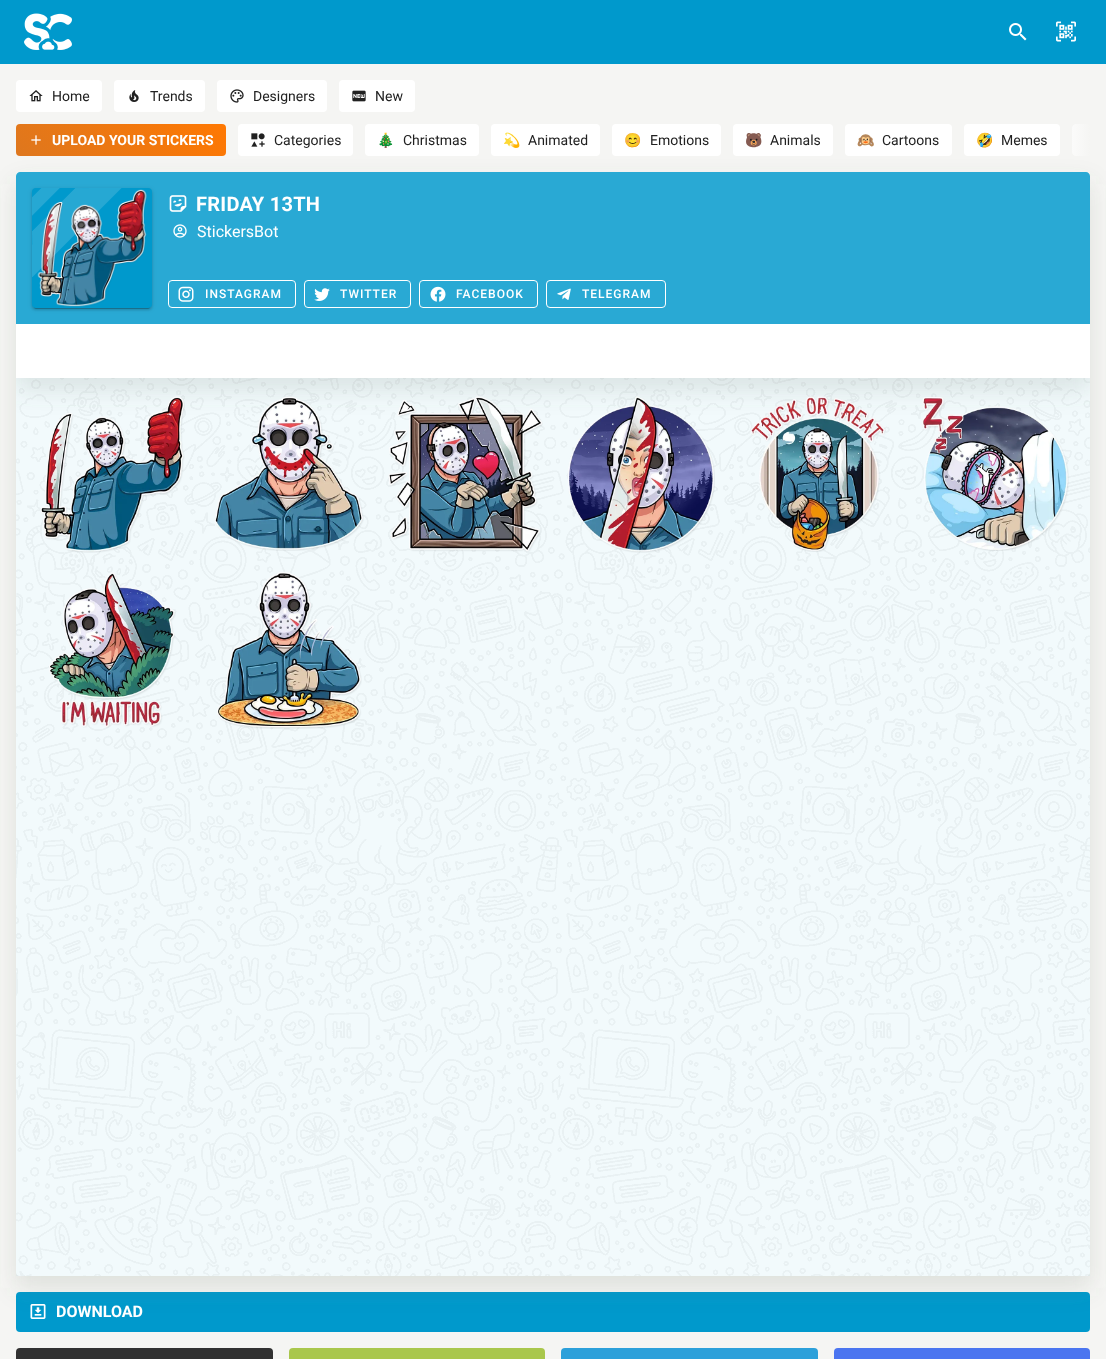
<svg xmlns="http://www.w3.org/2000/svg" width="1106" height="1359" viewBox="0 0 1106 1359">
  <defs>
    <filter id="blur1" x="-50%" y="-200%" width="200%" height="500%"><feGaussianBlur stdDeviation="12"/></filter>
    <linearGradient id="g1" gradientUnits="userSpaceOnUse" x1="61" y1="201" x2="182" y2="80"><stop offset="0" stop-color="#de771e"/><stop offset="1" stop-color="#ff7802"/></linearGradient>
    <linearGradient id="g2" gradientUnits="userSpaceOnUse" x1="1060" y1="140" x2="1090" y2="140"><stop offset="0" stop-color="#f5f5f3" stop-opacity="0"/><stop offset="1" stop-color="#f5f5f3"/></linearGradient>
    <clipPath id="clip1"><rect x="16" y="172" width="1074" height="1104" rx="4"/></clipPath>
    <clipPath id="clip2"><path d="M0 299H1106V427H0ZM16 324H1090V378H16Z" clip-rule="evenodd"/></clipPath>
    <filter id="blur2" x="-50%" y="-200%" width="200%" height="500%"><feGaussianBlur stdDeviation="2.5"/></filter>
    <filter id="blur3" x="-50%" y="-200%" width="200%" height="500%"><feGaussianBlur stdDeviation="1"/></filter>
    <filter id="blur4" x="-50%" y="-200%" width="200%" height="500%"><feGaussianBlur stdDeviation="0.5"/></filter>
  </defs>
  <rect width="100%" height="100%" fill="#f5f5f3"/>
  <rect x="0" y="0" width="1106" height="64" fill="#0099cc"/>
  <image x="24" y="13" width="48" height="37" href="img1.png"/>
  <image x="1009" y="23" width="18" height="18" href="img2.png"/>
  <image x="1056" y="21" width="20" height="21" href="img3.png"/>
  <rect x="16" y="80" width="86" height="32" rx="4" fill="#ffffff"/>
  <image x="29" y="90" width="14" height="12" href="img4.png"/>
  <text x="52" y="101" font-family="Roboto" font-size="14" fill="#212121">Home</text>
  <rect x="114" y="80" width="91" height="32" rx="4" fill="#ffffff"/>
  <image x="129" y="90" width="10" height="12" href="img5.png"/>
  <text x="150" y="101" font-family="Roboto" font-size="14" fill="#212121">Trends</text>
  <rect x="217" y="80" width="110" height="32" rx="4" fill="#ffffff"/>
  <image x="230" y="89" width="14" height="14" href="img6.png"/>
  <text x="253" y="101" font-family="Roboto" font-size="14" fill="#212121">Designers</text>
  <rect x="339" y="80" width="76" height="32" rx="4" fill="#ffffff"/>
  <image x="352" y="90" width="14" height="12" href="img7.png"/>
  <text x="375" y="101" font-family="Roboto" font-size="14" fill="#212121">New</text>
  <rect x="16" y="1292" width="1074" height="40" rx="4" fill="#0099cc"/>
  <rect x="16" y="184" width="1074" height="1104" rx="4" fill="#666e62" fill-opacity="0.16" filter="url(#blur1)"/>
  <rect x="16" y="124" width="210" height="32" rx="4" fill="url(#g1)"/>
  <image x="31" y="135" width="10" height="10" href="img8.png"/>
  <text x="52" y="145" font-family="Roboto" font-size="14" font-weight="bold" fill="#ffffff">UPLOAD YOUR STICKERS</text>
  <rect x="238" y="124" width="115" height="32" rx="4" fill="#ffffff"/>
  <image x="251" y="133" width="14" height="14" href="img9.png"/>
  <text x="274" y="145" font-family="Roboto" font-size="14" fill="#212121">Categories</text>
  <rect x="365" y="124" width="114" height="32" rx="4" fill="#ffffff"/>
  <text x="377" y="145" font-family="Noto Color Emoji" font-size="14" fill="#212121">🎄</text>
  <text x="403" y="145" font-family="Roboto" font-size="14" fill="#212121">Christmas</text>
  <rect x="491" y="124" width="109" height="32" rx="4" fill="#ffffff"/>
  <text x="503" y="145" font-family="Noto Color Emoji" font-size="14" fill="#212121">💫</text>
  <text x="528" y="145" font-family="Roboto" font-size="14" fill="#212121">Animated</text>
  <rect x="612" y="124" width="109" height="32" rx="4" fill="#ffffff"/>
  <text x="624" y="145" font-family="Noto Color Emoji" font-size="14" fill="#212121">😊</text>
  <text x="650" y="145" font-family="Roboto" font-size="14" fill="#212121">Emotions</text>
  <rect x="733" y="124" width="100" height="32" rx="4" fill="#ffffff"/>
  <text x="745" y="145" font-family="Noto Color Emoji" font-size="14" fill="#212121">🐻</text>
  <text x="770" y="145" font-family="Roboto" font-size="14" fill="#212121">Animals</text>
  <rect x="845" y="124" width="107" height="32" rx="4" fill="#ffffff"/>
  <text x="857" y="145" font-family="Noto Color Emoji" font-size="14" fill="#212121">🙉</text>
  <text x="882" y="145" font-family="Roboto" font-size="14" fill="#212121">Cartoons</text>
  <rect x="964" y="124" width="96" height="32" rx="4" fill="#ffffff"/>
  <text x="976" y="145" font-family="Noto Color Emoji" font-size="14" fill="#212121">🤣</text>
  <text x="1001" y="145" font-family="Roboto" font-size="14" fill="#212121">Memes</text>
  <path d="M1076 124H1090V156H1076C1074 156 1072 154 1072 152V128C1072 126 1074 124 1076 124Z" fill="#ffffff"/>
  <rect x="1072" y="124" width="18" height="32" fill="url(#g2)"/>
  <rect x="16" y="172" width="1074" height="1104" rx="4" fill="#ffffff"/>
  <g clip-path="url(#clip1)">
    <g clip-path="url(#clip2)">
      <rect x="16" y="336" width="1074" height="54" fill="#666e62" fill-opacity="0.16" filter="url(#blur1)"/>
    </g>
  </g>
  <path d="M20 172H1086C1088 172 1090 174 1090 176V324H16V176C16 174 18 172 20 172Z" fill="#0099cc" fill-opacity="0.84"/>
  <rect x="32" y="189" width="120" height="120" rx="4" fill="#000000" fill-opacity="0.12" filter="url(#blur2)"/>
  <rect x="32" y="190" width="120" height="120" rx="4" fill="#000000" fill-opacity="0.14" filter="url(#blur3)"/>
  <rect x="34" y="193" width="116" height="116" rx="2" fill="#000000" fill-opacity="0.2" filter="url(#blur4)"/>
  <rect x="32" y="188" width="120" height="120" rx="4" fill="#0099cc"/>
  <image x="37" y="189" width="110" height="118" href="img11.png"/>
  <image x="32" y="188" width="90" height="89" href="img10.png"/>
  <image x="169" y="195" width="18" height="17" href="img12.png"/>
  <text x="196" y="211" font-family="Roboto" font-size="20" font-weight="bold" letter-spacing="0.25" fill="#ffffff">FRIDAY 13TH</text>
  <image x="173" y="224" width="14" height="14" href="img13.png"/>
  <text x="197" y="237" font-family="Roboto" font-size="16" fill="#ffffff">StickersBot</text>
  <rect x="168.5" y="280.5" width="127" height="27" rx="3.5" fill="none" stroke="#ffffff"/>
  <image x="178" y="286" width="16" height="16" href="img14.png"/>
  <text x="205" y="298" font-family="Roboto" font-size="12" font-weight="500" letter-spacing="1" fill="#ffffff">INSTAGRAM</text>
  <rect x="304.5" y="280.5" width="106" height="27" rx="3.5" fill="none" stroke="#ffffff"/>
  <image x="314" y="288" width="16" height="13" href="img15.png"/>
  <text x="340" y="298" font-family="Roboto" font-size="12" font-weight="500" letter-spacing="1" fill="#ffffff">TWITTER</text>
  <rect x="419.5" y="280.5" width="118" height="27" rx="3.5" fill="none" stroke="#ffffff"/>
  <image x="430" y="286" width="16" height="16" href="img16.png"/>
  <text x="456" y="298" font-family="Roboto" font-size="12" font-weight="500" letter-spacing="1" fill="#ffffff">FACEBOOK</text>
  <rect x="546.5" y="280.5" width="119" height="27" rx="3.5" fill="none" stroke="#ffffff"/>
  <image x="557" y="288" width="14" height="12" href="img17.png"/>
  <text x="582" y="298" font-family="Roboto" font-size="12" font-weight="500" letter-spacing="1" fill="#ffffff">TELEGRAM</text>
  <rect x="16" y="378" width="1074" height="898" fill="#0099cc" fill-opacity="0.05"/>
  <image x="16" y="378" width="1074" height="898" href="img18.png"/>
  <image x="40" y="396" width="145" height="157" href="img19.png"/>
  <image x="215" y="396" width="149" height="155" href="img20.png"/>
  <image x="388" y="396" width="155" height="156" href="img21.png"/>
  <image x="568" y="396" width="147" height="157" href="img22.png"/>
  <image x="750" y="396" width="136" height="156" href="img23.png"/>
  <image x="922" y="397" width="147" height="154" href="img24.png"/>
  <image x="49" y="572" width="127" height="156" href="img25.png"/>
  <image x="217" y="572" width="145" height="157" href="img26.png"/>
  <image x="30" y="1304" width="16" height="15" href="img27.png"/>
  <text x="56" y="1317" font-family="Roboto" font-size="16" font-weight="bold" fill="#ffffff">DOWNLOAD</text>
  <rect x="16" y="1348" width="257" height="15" rx="4" fill="#313131"/>
  <rect x="289" y="1348" width="256" height="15" rx="4" fill="#a9c74c"/>
  <rect x="561" y="1348" width="257" height="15" rx="4" fill="#2ca0da"/>
  <rect x="834" y="1348" width="256" height="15" rx="4" fill="#4b75f0"/>
</svg>
